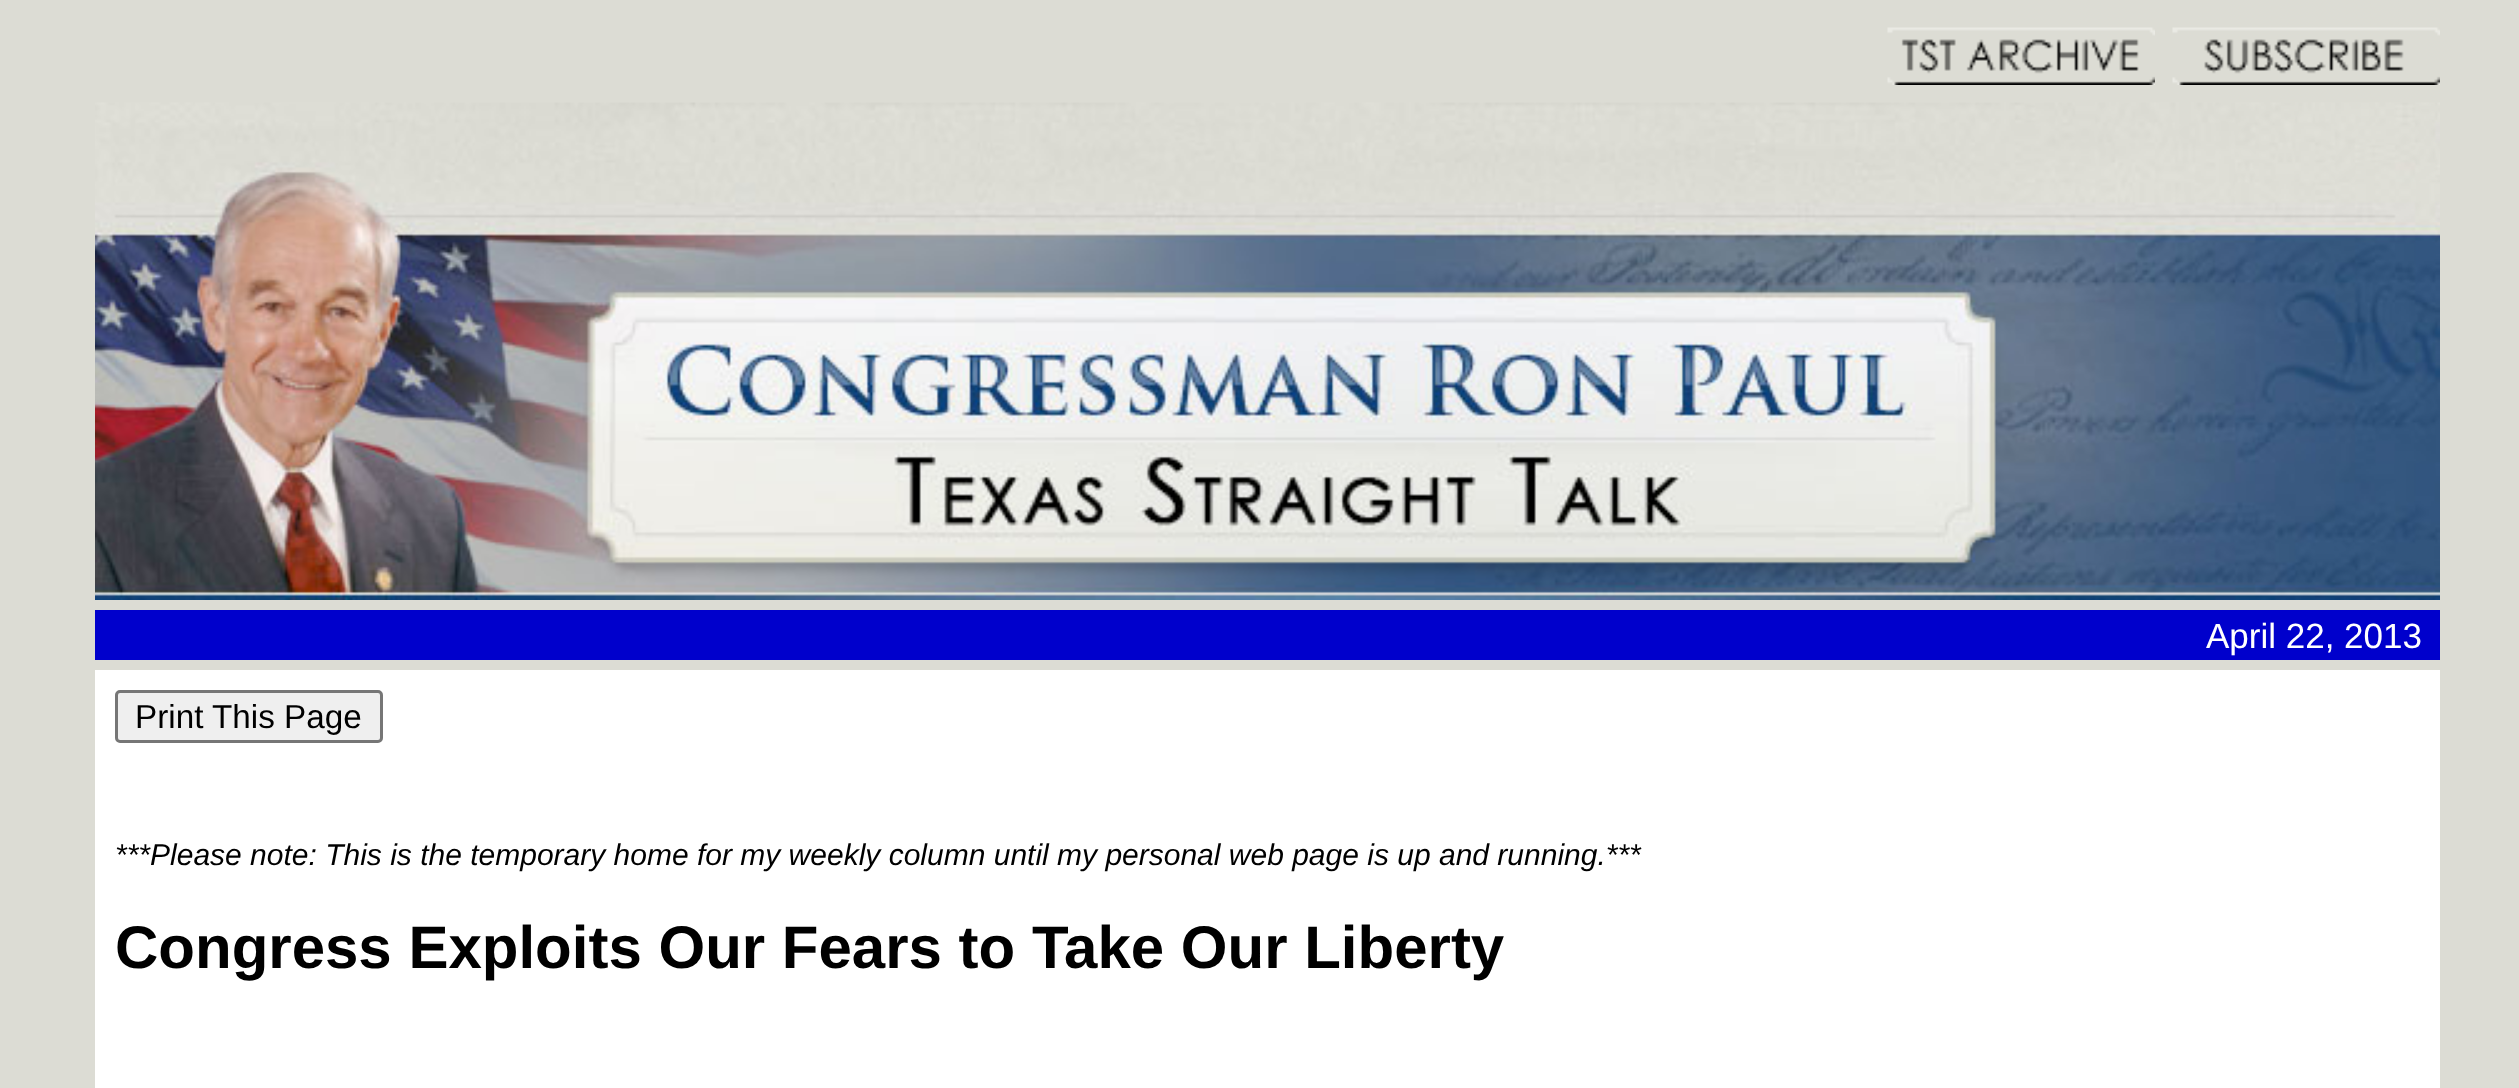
<svg xmlns="http://www.w3.org/2000/svg" width="2519" height="1088" viewBox="0 0 2519 1088">
  <rect width="100%" height="100%" fill="#dcdcd4"/>
  <image x="1887" y="27" width="268" height="58" href="img1.png"/>
  <image x="2172" y="27" width="268" height="58" href="img2.png"/>
  <image x="95" y="102" width="2345" height="498" href="img3.png"/>
  <rect x="95" y="610" width="2345" height="50" fill="#0000cc"/>
  <text x="2206" y="648" font-family="Liberation Sans" font-size="35" fill="#ffffff">April 22, 2013</text>
  <rect x="95" y="670" width="2345" height="418" fill="#ffffff"/>
  <rect x="116.5" y="691.5" width="265" height="50" rx="3.5" fill="#efefef" stroke="#767676" stroke-width="3"/>
  <text x="135" y="728" font-family="Liberation Sans" font-size="33.25" fill="#000000">Print This Page</text>
  <text x="115" y="865" font-family="Liberation Sans" font-size="30" font-style="italic" fill="#000000">***Please note: This is the temporary home for my weekly column until my personal web page is up and running.***</text>
  <text x="115" y="968" font-family="Liberation Sans" font-size="60" font-weight="bold" fill="#000000">Congress Exploits Our Fears to Take Our Liberty</text>
</svg>
